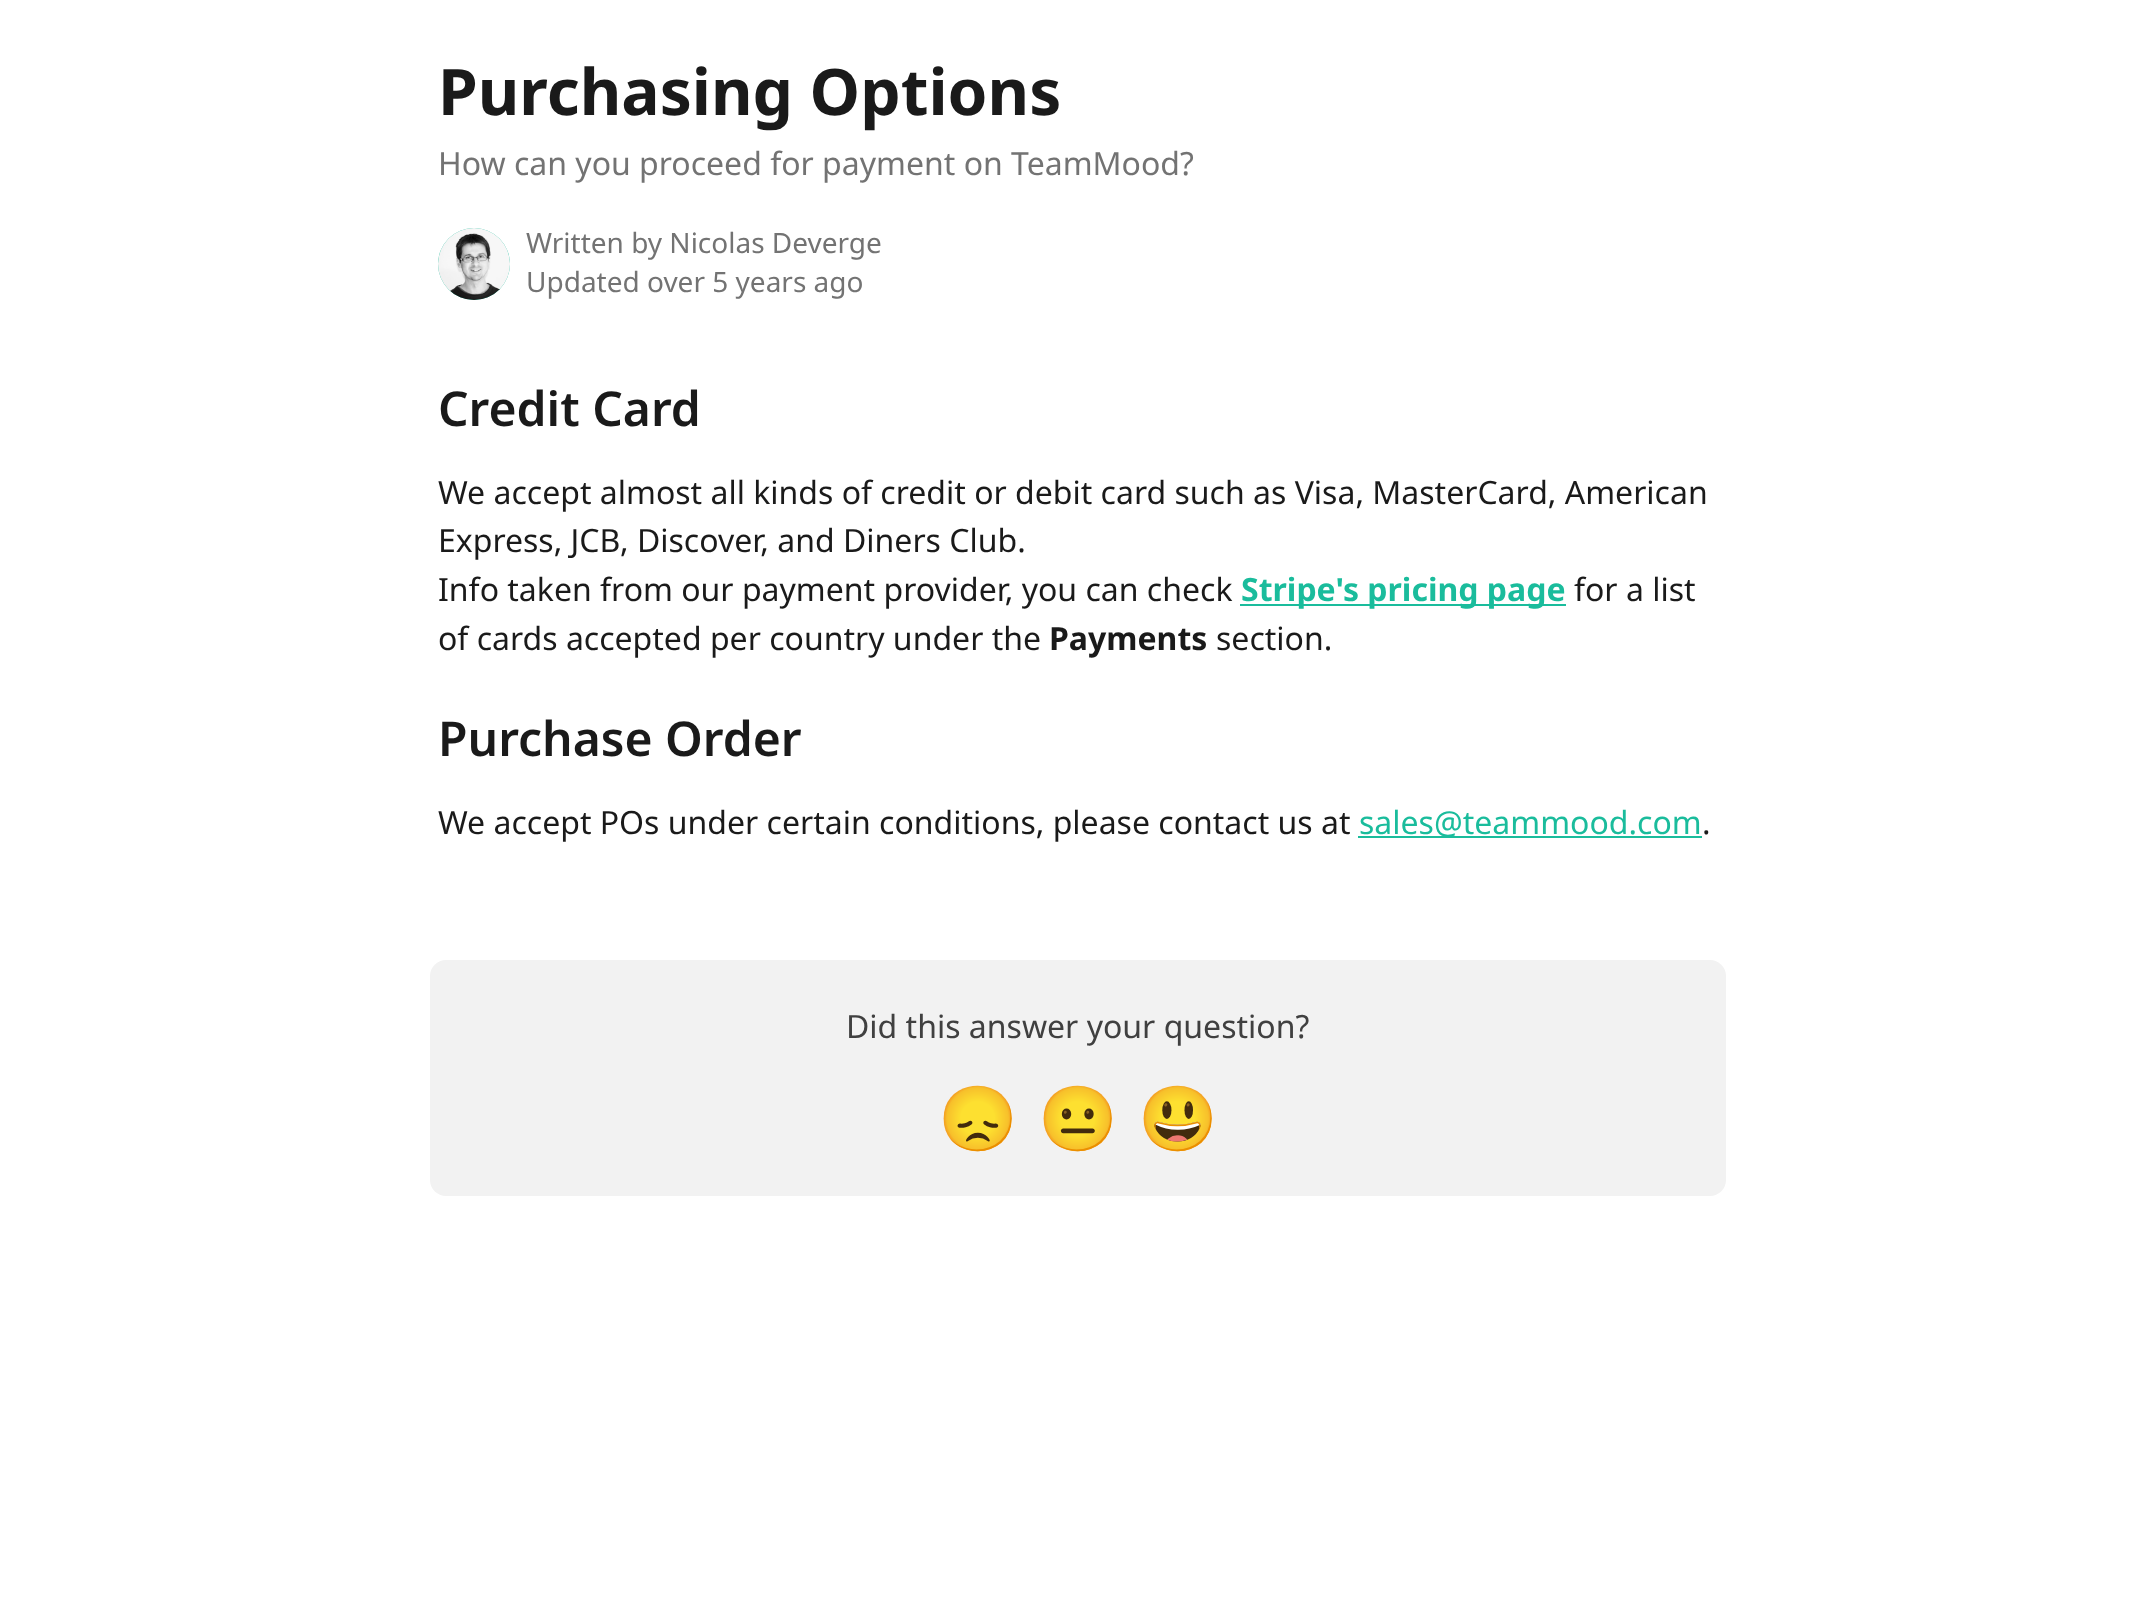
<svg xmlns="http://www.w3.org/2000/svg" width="2156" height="1604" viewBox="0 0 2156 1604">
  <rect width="100%" height="100%" fill="#ffffff"/>
  <text x="438" y="115" font-family="Noto Sans" font-size="64" font-weight="bold" fill="#1a1a1a">Purchasing Options</text>
  <text x="438" y="175" font-family="Noto Sans" font-size="32" fill="#737373">How can you proceed for payment on TeamMood?</text>
  <circle cx="474" cy="264" r="36" fill="#1abc9c"/>
  <image x="438" y="228" width="72" height="72" href="img1.png"/>
  <text x="526" y="253" font-family="Noto Sans" font-size="28" fill="#737373">Written by Nicolas Deverge</text>
  <text x="526" y="292" font-family="Noto Sans" font-size="28" fill="#737373">Updated over 5 years ago</text>
  <text x="438" y="426" font-family="Noto Sans" font-size="48" font-weight="600" fill="#1a1a1a">Credit Card</text>
  <text x="438" y="504" font-family="Noto Sans" font-size="32" fill="#1a1a1a">We accept almost all kinds of credit or debit card such as Visa, MasterCard, American</text>
  <text x="438" y="552" font-family="Noto Sans" font-size="32" fill="#1a1a1a">Express, JCB, Discover, and Diners Club.</text>
  <text x="438" y="601" font-family="Noto Sans" font-size="32" fill="#1a1a1a">Info taken from our payment provider, you can check</text>
  <rect x="1240" y="604" width="326" height="2" fill="#1abc9c"/>
  <text x="1241" y="601" font-family="Noto Sans" font-size="32" font-weight="bold" fill="#1abc9c">Stripe's pricing page</text>
  <text x="1574" y="601" font-family="Noto Sans" font-size="32" fill="#1a1a1a">for a list</text>
  <text x="438" y="650" font-family="Noto Sans" font-size="32" fill="#1a1a1a">of cards accepted per country under the</text>
  <text x="1049" y="650" font-family="Noto Sans" font-size="32" font-weight="bold" fill="#1a1a1a">Payments</text>
  <text x="1216" y="650" font-family="Noto Sans" font-size="32" fill="#1a1a1a">section.</text>
  <text x="438" y="756" font-family="Noto Sans" font-size="48" font-weight="600" fill="#1a1a1a">Purchase Order</text>
  <text x="438" y="834" font-family="Noto Sans" font-size="32" fill="#1a1a1a">We accept POs under certain conditions, please contact us at</text>
  <rect x="1358" y="836" width="344" height="2" fill="#1abc9c"/>
  <text x="1359" y="834" font-family="Noto Sans" font-size="32" fill="#1abc9c">sales@teammood.com</text>
  <text x="1702" y="834" font-family="Noto Sans" font-size="32" fill="#1a1a1a">.</text>
  <rect x="430" y="960" width="1296" height="236" rx="16" fill="#f2f2f2"/>
  <text x="846" y="1038" font-family="Noto Sans" font-size="32" fill="#404040">Did this answer your question?</text>
  <text x="938" y="1141" font-family="Noto Color Emoji" font-size="64" fill="#404040">😞</text>
  <text x="1038" y="1141" font-family="Noto Color Emoji" font-size="64" fill="#404040">😐</text>
  <text x="1138" y="1141" font-family="Noto Color Emoji" font-size="64" fill="#404040">😃</text>
</svg>
